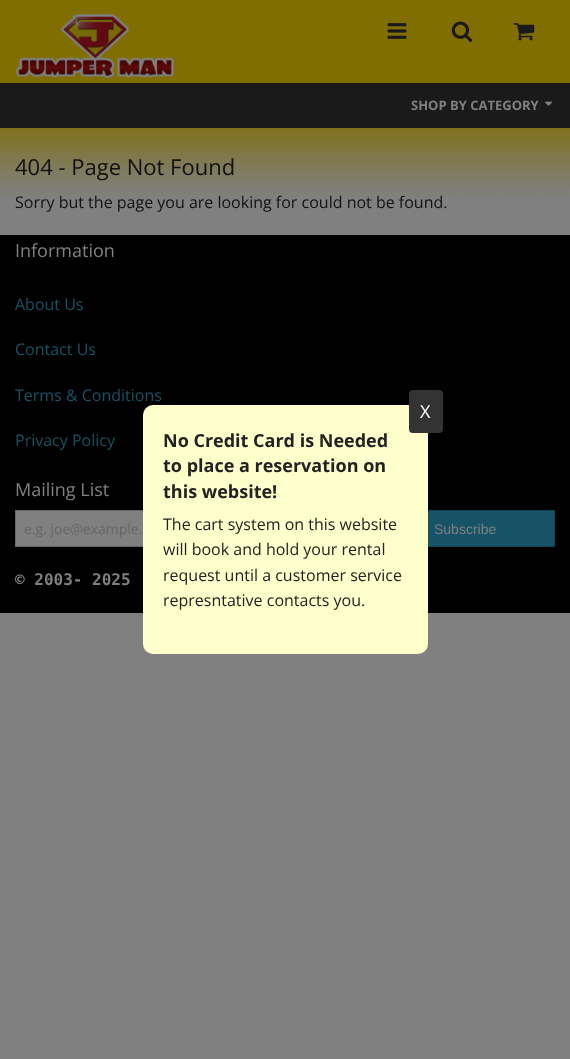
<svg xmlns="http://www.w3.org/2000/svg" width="570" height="1059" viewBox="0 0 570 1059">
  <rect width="100%" height="100%" fill="#808080"/>
  <image x="0" y="0" width="570" height="198" href="img1.png"/>
  <image x="16" y="14" width="158" height="65" href="img2.png"/>
  <image x="387" y="23" width="20" height="16" href="img3.png"/>
  <image x="451" y="21" width="22" height="21" href="img4.png"/>
  <image x="513" y="23" width="22" height="18" href="img5.png"/>
  <rect x="0" y="83" width="570" height="45" fill="#1a1a1a"/>
  <text x="411" y="110" font-family="Open Sans" font-size="13" font-weight="bold" fill="#808080">SHOP BY CATEGORY</text>
  <image x="544" y="101" width="9" height="5" href="img6.png"/>
  <text x="15" y="175" font-family="Open Sans" font-size="22" fill="#111111">404 - Page Not Found</text>
  <text x="15" y="208" font-family="Open Sans" font-size="16" fill="#111111">Sorry but the page you are looking for could not be found.</text>
  <rect x="0" y="235" width="570" height="378" fill="#000000"/>
  <text x="15" y="257" font-family="Open Sans" font-size="18" fill="#808080">Information</text>
  <text x="15" y="310" font-family="Open Sans" font-size="16" fill="#165366">About Us</text>
  <text x="15" y="355" font-family="Open Sans" font-size="16" fill="#165366">Contact Us</text>
  <text x="15" y="401" font-family="Open Sans" font-size="16" fill="#165366">Terms &amp; Conditions</text>
  <text x="15" y="446" font-family="Open Sans" font-size="16" fill="#165366">Privacy Policy</text>
  <text x="15" y="496" font-family="Open Sans" font-size="18" fill="#808080">Mailing List</text>
  <rect x="16" y="511" width="127" height="35" fill="#808080"/>
  <rect x="15.5" y="510.5" width="359" height="36" fill="none" stroke="#666666"/>
  <text x="24" y="534" font-family="Open Sans" font-size="14" fill="#666666">e.g. joe@example.</text>
  <rect x="428" y="511" width="126" height="35" fill="#165366"/>
  <rect x="375.5" y="510.5" width="179" height="36" fill="none" stroke="#114351"/>
  <text x="434" y="534" font-family="Liberation Sans" font-size="14" fill="#808080">Subscribe</text>
  <text x="15" y="585" font-family="DejaVu Sans Mono" font-size="16" font-weight="bold" fill="#808080">© 2003- 2025</text>
  <rect x="143" y="405" width="285" height="249" rx="10" fill="#ffffcc"/>
  <rect x="409" y="390" width="34" height="43" rx="4" fill="#333333"/>
  <text x="420" y="418" font-family="Open Sans" font-size="18" fill="#ffffff">X</text>
  <text x="163" y="447" font-family="Open Sans" font-size="18" font-weight="bold" fill="#222222">No Credit Card is Needed</text>
  <text x="163" y="472" font-family="Open Sans" font-size="18" font-weight="bold" fill="#222222">to place a reservation on</text>
  <text x="163" y="498" font-family="Open Sans" font-size="18" font-weight="bold" fill="#222222">this website!</text>
  <text x="163" y="530" font-family="Open Sans" font-size="16" fill="#222222">The cart system on this website</text>
  <text x="163" y="555" font-family="Open Sans" font-size="16" fill="#222222">will book and hold your rental</text>
  <text x="163" y="581" font-family="Open Sans" font-size="16" fill="#222222">request until a customer service</text>
  <text x="163" y="606" font-family="Open Sans" font-size="16" fill="#222222">represntative contacts you.</text>
</svg>
